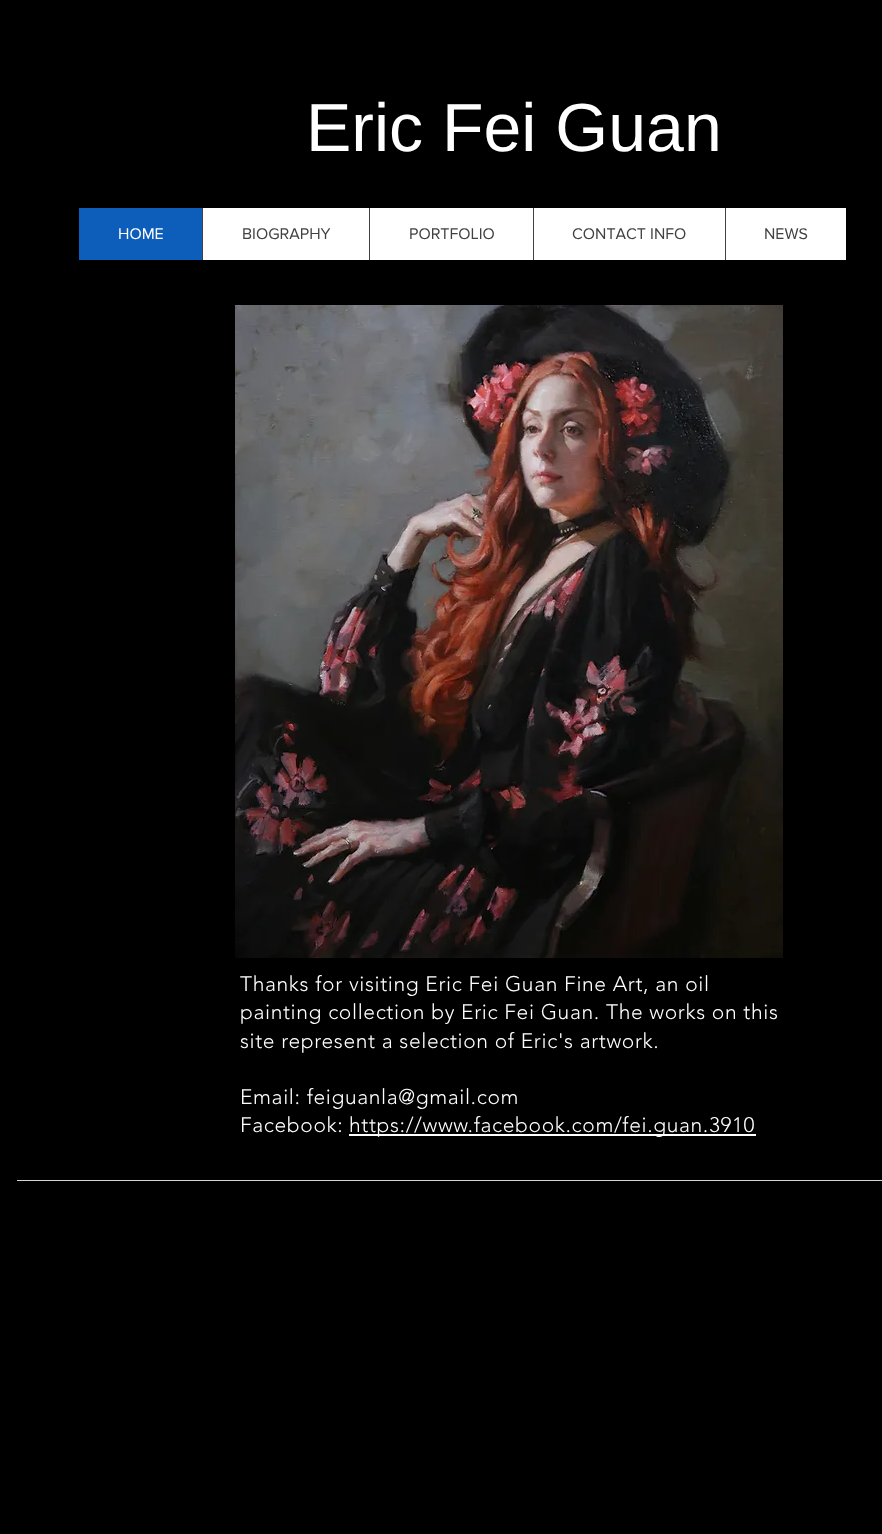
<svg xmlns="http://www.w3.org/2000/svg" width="882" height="1534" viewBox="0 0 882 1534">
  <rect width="100%" height="100%" fill="#000000"/>
  <text x="306" y="151" font-family="Liberation Sans" font-size="68" fill="#ffffff">Eric Fei Guan</text>
  <rect x="203" y="208" width="643" height="52" fill="#ffffff"/>
  <rect x="79" y="208" width="123" height="52" fill="#0d5eba"/>
  <text x="118" y="239" font-family="'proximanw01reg'" font-size="16" fill="#ffffff">HOME</text>
  <rect x="202" y="208" width="1" height="52" fill="#414141"/>
  <text x="242" y="239" font-family="'proximanw01reg'" font-size="16" fill="#414141">BIOGRAPHY</text>
  <rect x="369" y="208" width="1" height="52" fill="#414141"/>
  <text x="409" y="239" font-family="'proximanw01reg'" font-size="16" fill="#414141">PORTFOLIO</text>
  <rect x="533" y="208" width="1" height="52" fill="#414141"/>
  <text x="572" y="239" font-family="'proximanw01reg'" font-size="16" fill="#414141">CONTACT INFO</text>
  <rect x="725" y="208" width="1" height="52" fill="#414141"/>
  <text x="764" y="239" font-family="'proximanw01reg'" font-size="16" fill="#414141">NEWS</text>
  <image x="235" y="305" width="548" height="653" href="img1.png"/>
  <text x="240" y="991" font-family="'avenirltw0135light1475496'" font-size="21" font-weight="300" letter-spacing="0.63" fill="#ffffff">Thanks for visiting Eric Fei Guan Fine Art, an oil</text>
  <text x="240" y="1019" font-family="'avenirltw0135light1475496'" font-size="21" font-weight="300" letter-spacing="0.63" fill="#ffffff">painting collection by Eric Fei Guan. The works on this</text>
  <text x="240" y="1048" font-family="'avenirltw0135light1475496'" font-size="21" font-weight="300" letter-spacing="0.63" fill="#ffffff">site represent a selection of Eric's artwork.</text>
  <text x="240" y="1104" font-family="'avenirltw0135light1475496'" font-size="21" font-weight="300" letter-spacing="0.63" fill="#ffffff">Email: feiguanla@gmail.com</text>
  <text x="240" y="1132" font-family="'avenirltw0135light1475496'" font-size="21" font-weight="300" letter-spacing="0.63" fill="#ffffff">Facebook:</text>
  <rect x="349" y="1134" width="407" height="2" fill="#ffffff"/>
  <text x="349" y="1132" font-family="'avenirltw0135light1475496'" font-size="21" font-weight="300" letter-spacing="0.63" fill="#ffffff">https://www.facebook.com/fei.guan.3910</text>
  <rect x="17" y="1180" width="865" height="1" fill="#d6d6d4"/>
</svg>
